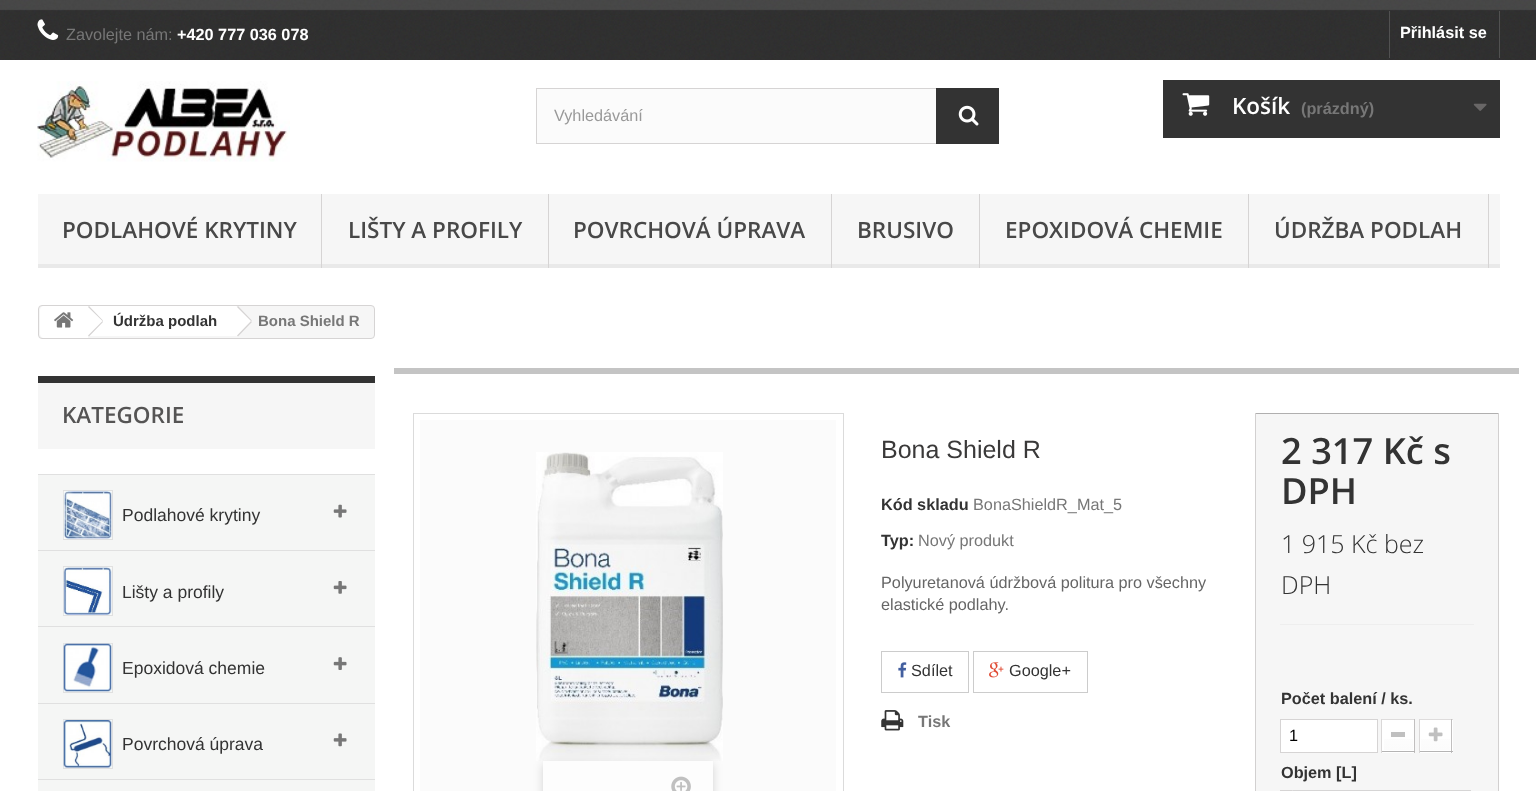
<svg xmlns="http://www.w3.org/2000/svg" width="1536" height="791" viewBox="0 0 1536 791">
  <defs>
    <clipPath id="clip1"><path d="M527 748H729V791H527ZM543 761H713V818H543Z" clip-rule="evenodd"/></clipPath>
    <filter id="blur1" x="-50%" y="-200%" width="200%" height="500%"><feGaussianBlur stdDeviation="5"/></filter>
    <linearGradient id="g1" gradientUnits="userSpaceOnUse" x1="1398" y1="721" x2="1398" y2="750"><stop offset="0" stop-color="#ffffff"/><stop offset="1" stop-color="#fbfbfb"/></linearGradient>
    <linearGradient id="g2" gradientUnits="userSpaceOnUse" x1="1436" y1="721" x2="1436" y2="750"><stop offset="0" stop-color="#ffffff"/><stop offset="1" stop-color="#fbfbfb"/></linearGradient>
  </defs>
  <rect width="100%" height="100%" fill="#ffffff"/>
  <image x="0" y="0" width="1536" height="60" href="img1.png"/>
  <image x="37" y="19" width="22" height="21" href="img2.png"/>
  <text x="66" y="40" font-family="Liberation Sans" font-size="16.25" fill="#777777">Zavolejte nám:</text>
  <text x="177" y="40" font-family="Liberation Sans" font-size="16.25" font-weight="bold" fill="#ffffff">+420 777 036 078</text>
  <rect x="1499" y="11" width="1" height="47" fill="#515151"/>
  <rect x="1389" y="11" width="1" height="47" fill="#515151"/>
  <text x="1400" y="38" font-family="Liberation Sans" font-size="16.25" font-weight="bold" fill="#ffffff">Přihlásit se</text>
  <image x="37" y="81" width="253" height="81" href="img3.png"/>
  <rect x="537" y="89" width="399" height="54" fill="#fbfbfb"/>
  <rect x="536.5" y="88.5" width="462" height="55" fill="none" stroke="#d6d4d4"/>
  <text x="554" y="121" font-family="Liberation Sans" font-size="16.25" fill="#999999">Vyhledávání</text>
  <rect x="936" y="88" width="63" height="56" fill="#333333"/>
  <image x="958" y="105" width="21" height="21" href="img4.png"/>
  <rect x="1163" y="80" width="337" height="58" fill="#333333"/>
  <image x="1182" y="93" width="28" height="23" href="img5.png"/>
  <text x="1232" y="114" font-family="Open Sans" font-size="22.5" font-weight="600" fill="#ffffff">Košík</text>
  <text x="1301" y="114" font-family="Liberation Sans" font-size="16.25" font-weight="bold" fill="#777777">(prázdný)</text>
  <image x="1473" y="103" width="14" height="8" href="img6.png"/>
  <rect x="38" y="194" width="1462" height="70" fill="#f6f6f6"/>
  <rect x="38" y="264" width="1462" height="4" fill="#e9e9e9"/>
  <rect x="321" y="194" width="1" height="74" fill="#d6d4d4"/>
  <text x="62" y="238" font-family="Open Sans" font-size="22.5" font-weight="600" fill="#484848">PODLAHOVÉ KRYTINY</text>
  <rect x="548" y="194" width="1" height="74" fill="#d6d4d4"/>
  <text x="348" y="238" font-family="Open Sans" font-size="22.5" font-weight="600" fill="#484848">LIŠTY A PROFILY</text>
  <rect x="831" y="194" width="1" height="74" fill="#d6d4d4"/>
  <text x="573" y="238" font-family="Open Sans" font-size="22.5" font-weight="600" fill="#484848">POVRCHOVÁ ÚPRAVA</text>
  <rect x="979" y="194" width="1" height="74" fill="#d6d4d4"/>
  <text x="857" y="238" font-family="Open Sans" font-size="22.5" font-weight="600" fill="#484848">BRUSIVO</text>
  <rect x="1248" y="194" width="1" height="74" fill="#d6d4d4"/>
  <text x="1005" y="238" font-family="Open Sans" font-size="22.5" font-weight="600" fill="#484848">EPOXIDOVÁ CHEMIE</text>
  <rect x="1488" y="194" width="1" height="74" fill="#d6d4d4"/>
  <text x="1274" y="238" font-family="Open Sans" font-size="22.5" font-weight="600" fill="#484848">ÚDRŽBA PODLAH</text>
  <rect x="38.5" y="305.5" width="336" height="33" rx="3.5" fill="#f6f6f6" stroke="#d6d4d4"/>
  <path d="M44 306H88V338H44C42 338 40 336 40 334V310C40 308 42 306 44 306Z" fill="#ffffff"/>
  <image x="54" y="312" width="20" height="16" href="img7.png"/>
  <rect x="88" y="306" width="148" height="30" fill="#ffffff"/>
  <path d="M89 306L103 320.5L102.5 321L88 307ZM102.5 321L103 322L89 336.5L88 335.5Z" fill="#d6d4d4"/>
  <text x="113" y="326" font-family="Liberation Sans" font-size="15" font-weight="bold" fill="#333333">Údržba podlah</text>
  <path d="M238.5 307L251 319.5C252 320.5 252 322 251 323L238.5 335.5C237.5 336.5 236 336.5 235 335.5L223 323C222 322 222 320.5 223 319.5L235 307C236 306 237.5 306 238.5 307Z" fill="#ffffff"/>
  <path d="M238 306L252 320.5L251 321L237 307ZM251 321L252 322L238 336.5L237 335.5Z" fill="#d6d4d4"/>
  <text x="258" y="326" font-family="Liberation Sans" font-size="15" font-weight="bold" fill="#777777">Bona Shield R</text>
  <rect x="38" y="383" width="337" height="66" fill="#f6f6f6"/>
  <rect x="38" y="376" width="337" height="7" fill="#333333"/>
  <text x="62" y="423" font-family="Open Sans" font-size="22.5" font-weight="600" fill="#555454">KATEGORIE</text>
  <rect x="38" y="475" width="337" height="75" fill="#f5f6f5"/>
  <rect x="38" y="474" width="337" height="1" fill="#e0e0e0"/>
  <rect x="63.5" y="490.5" width="49" height="49" fill="none" stroke="#e0e0e0"/>
  <image x="63" y="491" width="49" height="48" href="img8.png"/>
  <text x="122" y="521" font-family="Liberation Sans" font-size="17.5" fill="#333333">Podlahové krytiny</text>
  <image x="333" y="504" width="14" height="14" href="img9.png"/>
  <rect x="38" y="551" width="337" height="75" fill="#f5f6f5"/>
  <rect x="38" y="550" width="337" height="1" fill="#e0e0e0"/>
  <rect x="63.5" y="566.5" width="49" height="49" fill="none" stroke="#e0e0e0"/>
  <image x="63" y="567" width="49" height="48" href="img10.png"/>
  <text x="122" y="598" font-family="Liberation Sans" font-size="17.5" fill="#333333">Lišty a profily</text>
  <image x="333" y="581" width="14" height="13" href="img11.png"/>
  <rect x="38" y="627" width="337" height="76" fill="#f5f6f5"/>
  <rect x="38" y="626" width="337" height="1" fill="#e0e0e0"/>
  <rect x="63.5" y="643.5" width="49" height="49" fill="none" stroke="#e0e0e0"/>
  <image x="63" y="643" width="49" height="49" href="img12.png"/>
  <text x="122" y="674" font-family="Liberation Sans" font-size="17.5" fill="#333333">Epoxidová chemie</text>
  <image x="333" y="657" width="14" height="13" href="img13.png"/>
  <rect x="38" y="704" width="337" height="75" fill="#f5f6f5"/>
  <rect x="38" y="703" width="337" height="1" fill="#e0e0e0"/>
  <rect x="63.5" y="719.5" width="49" height="49" fill="none" stroke="#e0e0e0"/>
  <image x="63" y="720" width="49" height="48" href="img14.png"/>
  <text x="122" y="750" font-family="Liberation Sans" font-size="17.5" fill="#333333">Povrchová úprava</text>
  <image x="333" y="733" width="14" height="14" href="img15.png"/>
  <rect x="38" y="780" width="337" height="11" fill="#f5f6f5"/>
  <rect x="38" y="779" width="337" height="1" fill="#e0e0e0"/>
  <rect x="394" y="368" width="1125" height="6" fill="#c4c4c4"/>
  <rect x="413.5" y="413.5" width="430" height="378" fill="none" stroke="#dbdbdb"/>
  <rect x="420" y="420" width="416" height="371" fill="#fbfbfb"/>
  <image x="536" y="452" width="187" height="309" href="img16.png"/>
  <g clip-path="url(#clip1)">
    <rect x="543" y="764" width="170" height="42" fill="#000000" fill-opacity="0.16" filter="url(#blur1)"/>
  </g>
  <rect x="543" y="761" width="170" height="30" fill="#ffffff" fill-opacity="0.5"/>
  <image x="671" y="776" width="20" height="15" href="img17.png"/>
  <text x="881" y="458" font-family="Liberation Sans" font-size="25" fill="#3a3939">Bona Shield R</text>
  <text x="881" y="510" font-family="Liberation Sans" font-size="16.25" font-weight="bold" fill="#333333">Kód skladu</text>
  <text x="973" y="510" font-family="Liberation Sans" font-size="16.25" fill="#777777">BonaShieldR_Mat_5</text>
  <text x="881" y="546" font-family="Liberation Sans" font-size="16.25" font-weight="bold" fill="#333333">Typ:</text>
  <text x="918" y="546" font-family="Liberation Sans" font-size="16.25" fill="#777777">Nový produkt</text>
  <text x="881" y="588" font-family="Liberation Sans" font-size="16.25" fill="#666666">Polyuretanová údržbová politura pro všechny</text>
  <text x="881" y="610" font-family="Liberation Sans" font-size="16.25" fill="#666666">elastické podlahy.</text>
  <rect x="881.5" y="651.5" width="87" height="41" fill="none" stroke="#cccccc"/>
  <image x="898" y="662" width="9" height="16" href="img18.png"/>
  <text x="911" y="676" font-family="Liberation Sans" font-size="16.25" fill="#333333">Sdílet</text>
  <rect x="973.5" y="651.5" width="114" height="41" fill="none" stroke="#cccccc"/>
  <image x="989" y="662" width="15" height="16" href="img19.png"/>
  <text x="1009" y="676" font-family="Liberation Sans" font-size="16.25" fill="#333333">Google+</text>
  <image x="881" y="710" width="23" height="21" href="img20.png"/>
  <text x="918" y="727" font-family="Liberation Sans" font-size="16.25" font-weight="bold" fill="#777777">Tisk</text>
  <rect x="1256" y="414" width="242" height="377" fill="#f6f6f6"/>
  <rect x="1255" y="413" width="244" height="1" fill="#b0afaf"/>
  <rect x="1498" y="413" width="1" height="378" fill="#d2d0d0"/>
  <rect x="1255" y="413" width="1" height="378" fill="#d2d0d0"/>
  <text x="1281" y="464" font-family="Open Sans" font-size="36.25" font-weight="600" fill="#333333">2 317 Kč s</text>
  <text x="1281" y="504" font-family="Open Sans" font-size="36.25" font-weight="600" fill="#333333">DPH</text>
  <text x="1281" y="553" font-family="Open Sans" font-size="25" font-weight="300" fill="#333333">1 915 Kč bez</text>
  <text x="1281" y="594" font-family="Open Sans" font-size="25" font-weight="300" fill="#333333">DPH</text>
  <rect x="1280" y="624" width="194" height="1" fill="#eeeeee"/>
  <text x="1281" y="704" font-family="Liberation Sans" font-size="16.25" font-weight="bold" fill="#333333">Počet balení / ks.</text>
  <rect x="1280.5" y="719.5" width="97" height="33" fill="#ffffff" stroke="#d6d4d4"/>
  <text x="1289" y="741" font-family="Liberation Sans" font-size="16.25" fill="#000000">1</text>
  <rect x="1382" y="720" width="32" height="33" fill="#ffffff"/>
  <rect x="1381" y="719" width="34" height="1" fill="#dedcdc"/>
  <rect x="1414" y="719" width="1" height="34" fill="#c1bfbf"/>
  <rect x="1381" y="751" width="34" height="1" fill="#b5b4b4"/>
  <rect x="1381" y="719" width="1" height="34" fill="#dad8d8"/>
  <rect x="1384" y="739" width="29" height="11" fill="url(#g1)"/>
  <rect x="1391" y="732" width="14" height="5" fill="#c0c0c0"/>
  <rect x="1420" y="720" width="33" height="33" fill="#ffffff"/>
  <rect x="1419" y="719" width="34" height="1" fill="#dedcdc"/>
  <rect x="1451" y="719" width="1" height="34" fill="#c1bfbf"/>
  <rect x="1419" y="751" width="34" height="1" fill="#b5b4b4"/>
  <rect x="1419" y="719" width="1" height="34" fill="#dad8d8"/>
  <rect x="1421" y="739" width="29" height="11" fill="url(#g2)"/>
  <image x="1428" y="727" width="15" height="15" href="img21.png"/>
  <text x="1281" y="778" font-family="Liberation Sans" font-size="16.25" font-weight="bold" fill="#333333">Objem [L]</text>
  <image x="1280" y="790" width="13" height="1" href="img22.png"/>
  <image x="1292" y="790" width="179" height="1" href="img23.png"/>
</svg>
